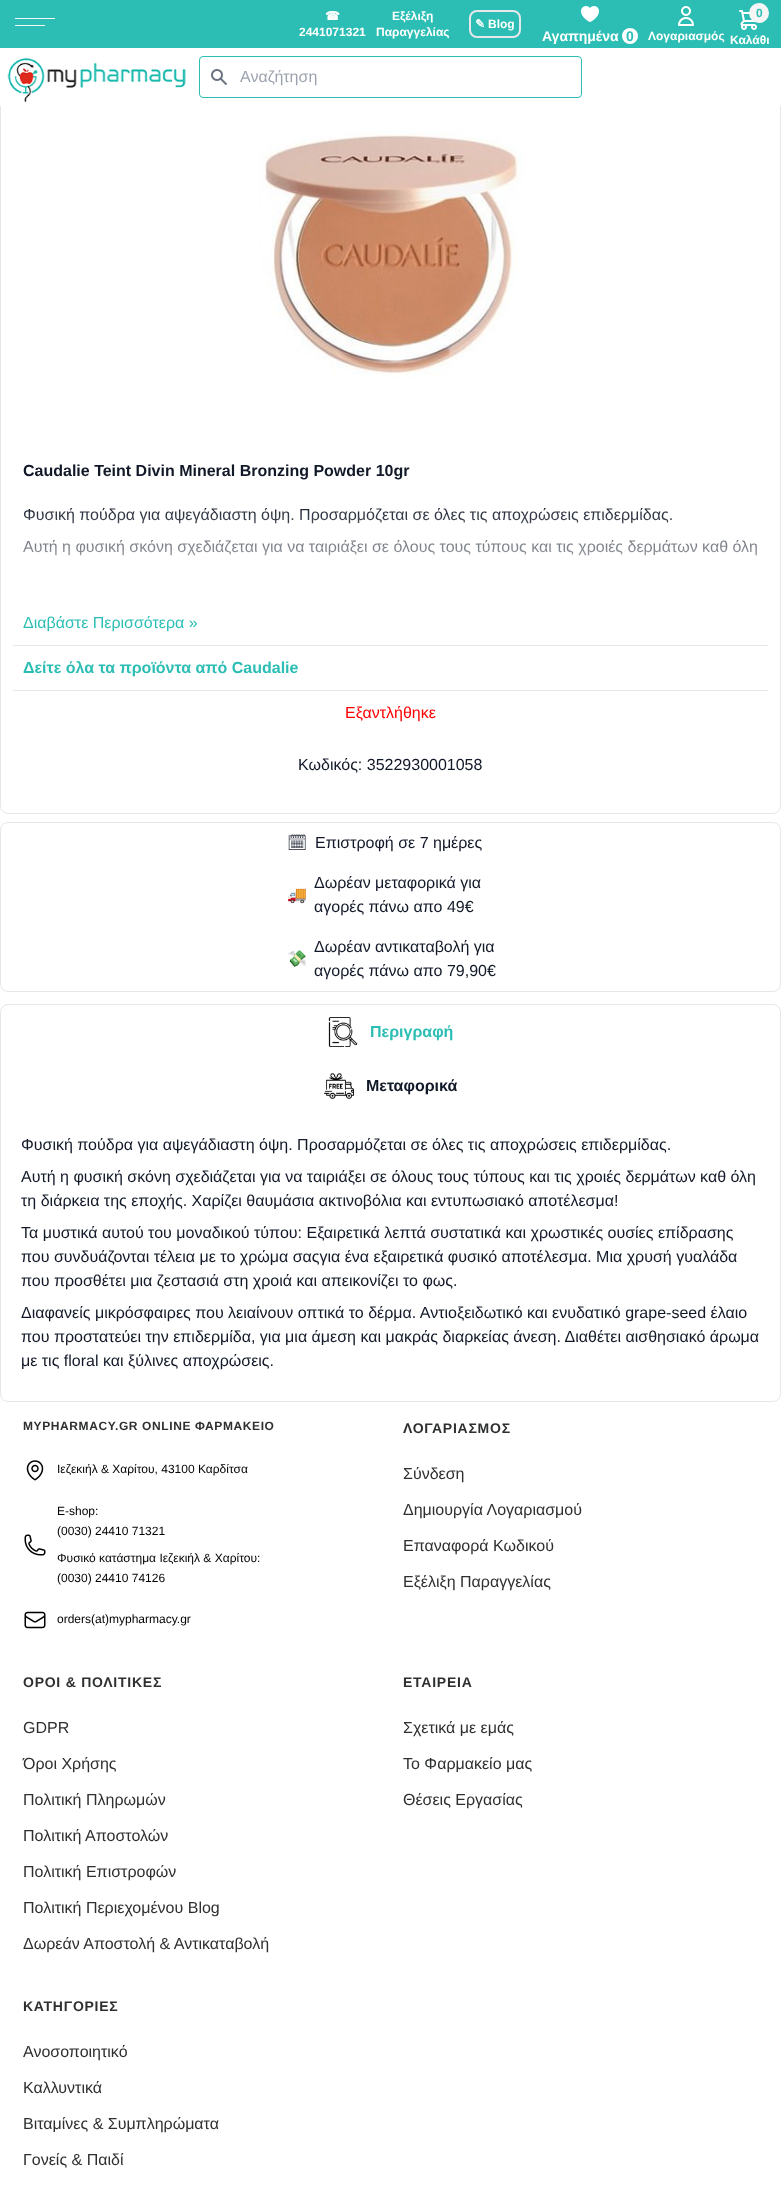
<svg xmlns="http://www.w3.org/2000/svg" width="781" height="2190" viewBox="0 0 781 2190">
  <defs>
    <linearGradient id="g1" gradientUnits="userSpaceOnUse" x1="391" y1="503" x2="391" y2="599"><stop offset="0" stop-color="#ffffff" stop-opacity="0"/><stop offset="1" stop-color="#ffffff"/></linearGradient>
  </defs>
  <rect width="100%" height="100%" fill="#ffffff"/>
  <rect x="0.5" y="38.5" width="780" height="775" rx="7.5" fill="none" stroke="#e5e7eb"/>
  <rect x="0" y="0" width="781" height="48" fill="#2cbeb4"/>
  <rect x="15" y="25" width="30" height="1" fill="#f6f6f6"/>
  <rect x="15" y="18" width="40" height="1" fill="#f6f6f6"/>
  <text x="325" y="20" font-family="DejaVu Sans" font-size="12" font-weight="bold" fill="#ffffff">☎</text>
  <text x="299" y="36" font-family="Liberation Sans" font-size="12" font-weight="bold" fill="#ffffff">2441071321</text>
  <text x="392" y="20" font-family="Liberation Sans" font-size="12" font-weight="bold" fill="#ffffff">Εξέλιξη</text>
  <text x="376" y="36" font-family="Liberation Sans" font-size="12" font-weight="bold" fill="#ffffff">Παραγγελίας</text>
  <rect x="470" y="11" width="50" height="26" rx="7" fill="none" stroke="#e5e7eb" stroke-width="2"/>
  <text x="475" y="28" font-family="DejaVu Sans" font-size="12" font-weight="bold" fill="#ffffff">✎</text>
  <text x="488" y="28" font-family="Liberation Sans" font-size="12" font-weight="bold" fill="#ffffff">Blog</text>
  <image x="739" y="10" width="18" height="20" href="img1.png"/>
  <circle cx="759" cy="13" r="10" fill="#f6f6f6"/>
  <text x="756" y="17" font-family="Liberation Sans" font-size="12" font-weight="bold" fill="#2cbeb4">0</text>
  <text x="730" y="44" font-family="Liberation Sans" font-size="12" font-weight="bold" fill="#ffffff">Καλάθι</text>
  <image x="581" y="6" width="18" height="16" href="img2.png"/>
  <text x="542" y="41" font-family="Liberation Sans" font-size="14" font-weight="bold" fill="#ffffff">Αγαπημένα</text>
  <circle cx="630" cy="36" r="8" fill="#ffffff"/>
  <text x="626" y="41" font-family="Liberation Sans" font-size="14" font-weight="bold" fill="#2cbeb4">0</text>
  <image x="678" y="6" width="16" height="20" href="img3.png"/>
  <text x="648" y="40" font-family="Liberation Sans" font-size="12" font-weight="bold" fill="#ffffff">Λογαριασμός</text>
  <rect x="0" y="48" width="781" height="58" fill="#ffffff"/>
  <image x="7" y="57" width="179" height="46" href="img4.png"/>
  <rect x="199.5" y="56.5" width="382" height="41" rx="3.5" fill="none" stroke="#2cbeb4"/>
  <image x="211" y="69" width="16" height="16" href="img5.png"/>
  <text x="240" y="82" font-family="Liberation Sans" font-size="16" fill="#9ca3af">Αναζήτηση</text>
  <image x="258" y="131" width="267" height="248" href="img6.png"/>
  <text x="23" y="476" font-family="Liberation Sans" font-size="16" font-weight="bold" fill="#111827">Caudalie Teint Divin Mineral Bronzing Powder 10gr</text>
  <rect x="13" y="645" width="755" height="1" fill="#e5e7eb"/>
  <text x="23" y="520" font-family="Liberation Sans" font-size="16" fill="#111827">Φυσική πούδρα για αψεγάδιαστη όψη. Προσαρμόζεται σε όλες τις αποχρώσεις επιδερμίδας.</text>
  <text x="23" y="552" font-family="Liberation Sans" font-size="16" fill="#111827">Αυτή η φυσική σκόνη σχεδιάζεται για να ταιριάξει σε όλους τους τύπους και τις χροιές δερμάτων καθ όλη</text>
  <rect x="23" y="508" width="734" height="48" fill="url(#g1)"/>
  <text x="23" y="628" font-family="Liberation Sans" font-size="16" fill="#2cbeb4">Διαβάστε Περισσότερα »</text>
  <rect x="13" y="690" width="755" height="1" fill="#e5e7eb"/>
  <text x="23" y="673" font-family="Liberation Sans" font-size="16" font-weight="bold" fill="#2cbeb4">Δείτε όλα τα προϊόντα από Caudalie</text>
  <text x="345" y="718" font-family="Liberation Sans" font-size="16" fill="#ff0000">Εξαντλήθηκε</text>
  <text x="298" y="770" font-family="Liberation Sans" font-size="16" fill="#111827">Κωδικός: 3522930001058</text>
  <rect x="0.5" y="822.5" width="780" height="169" rx="7.5" fill="none" stroke="#e5e7eb"/>
  <text x="287" y="848" font-family="Noto Emoji" font-size="16" fill="#111827">🗓</text>
  <text x="315" y="848" font-family="Liberation Sans" font-size="16" fill="#111827">Επιστροφή σε 7 ημέρες</text>
  <text x="287" y="900" font-family="Noto Color Emoji" font-size="16" fill="#111827">🚚</text>
  <text x="314" y="888" font-family="Liberation Sans" font-size="16" fill="#111827">Δωρέαν μεταφορικά για</text>
  <text x="314" y="912" font-family="Liberation Sans" font-size="16" fill="#111827">αγορές πάνω απο 49€</text>
  <text x="287" y="964" font-family="Noto Color Emoji" font-size="16" fill="#111827">💸</text>
  <text x="314" y="952" font-family="Liberation Sans" font-size="16" fill="#111827">Δωρέαν αντικαταβολή για</text>
  <text x="314" y="976" font-family="Liberation Sans" font-size="16" fill="#111827">αγορές πάνω απο 79,90€</text>
  <rect x="0.5" y="1004.5" width="780" height="397" rx="7.5" fill="none" stroke="#e5e7eb"/>
  <image x="328" y="1017" width="30" height="30" href="img7.png"/>
  <text x="370" y="1037" font-family="Liberation Sans" font-size="16" font-weight="bold" fill="#2cbeb4">Περιγραφή</text>
  <image x="324" y="1073" width="30" height="26" href="img8.png"/>
  <text x="366" y="1091" font-family="Liberation Sans" font-size="16" font-weight="bold" fill="#111827">Μεταφορικά</text>
  <text x="21" y="1150" font-family="Liberation Sans" font-size="16" fill="#111827">Φυσική πούδρα για αψεγάδιαστη όψη. Προσαρμόζεται σε όλες τις αποχρώσεις επιδερμίδας.</text>
  <text x="21" y="1182" font-family="Liberation Sans" font-size="16" fill="#111827">Αυτή η φυσική σκόνη σχεδιάζεται για να ταιριάξει σε όλους τους τύπους και τις χροιές δερμάτων καθ όλη</text>
  <text x="21" y="1206" font-family="Liberation Sans" font-size="16" fill="#111827">τη διάρκεια της εποχής. Χαρίζει θαυμάσια ακτινοβόλια και εντυπωσιακό αποτέλεσμα!</text>
  <text x="21" y="1238" font-family="Liberation Sans" font-size="16" fill="#111827">Τα μυστικά αυτού του μοναδικού τύπου: Εξαιρετικά λεπτά συστατικά και χρωστικές ουσίες επίδρασης</text>
  <text x="21" y="1262" font-family="Liberation Sans" font-size="16" fill="#111827">που συνδυάζονται τέλεια με το χρώμα σαςγια ένα εξαιρετικά φυσικό αποτέλεσμα. Μια χρυσή γυαλάδα</text>
  <text x="21" y="1286" font-family="Liberation Sans" font-size="16" fill="#111827">που προσθέτει μια ζεστασιά στη χροιά και απεικονίζει το φως.</text>
  <text x="21" y="1318" font-family="Liberation Sans" font-size="16" fill="#111827">Διαφανείς μικρόσφαιρες που λειαίνουν οπτικά το δέρμα. Αντιοξειδωτικό και ενυδατικό grape-seed έλαιο</text>
  <text x="21" y="1342" font-family="Liberation Sans" font-size="16" fill="#111827">που προστατεύει την επιδερμίδα, για μια άμεση και μακράς διαρκείας άνεση. Διαθέτει αισθησιακό άρωμα</text>
  <text x="21" y="1366" font-family="Liberation Sans" font-size="16" fill="#111827">με τις floral και ξύλινες αποχρώσεις.</text>
  <text x="23" y="1430" font-family="Liberation Sans" font-size="12" font-weight="bold" letter-spacing="0.6" fill="#2e2f30">MYPHARMACY.GR ONLINE ΦΑΡΜΑΚΕΙΟ</text>
  <image x="26" y="1460" width="18" height="21" href="img9.png"/>
  <text x="57" y="1473" font-family="Liberation Sans" font-size="12" fill="#000000">Ιεζεκιήλ &amp; Χαρίτου, 43100 Καρδίτσα</text>
  <image x="24" y="1534" width="22" height="22" href="img10.png"/>
  <text x="57" y="1515" font-family="Liberation Sans" font-size="12" fill="#000000">E-shop:</text>
  <text x="57" y="1535" font-family="Liberation Sans" font-size="12" fill="#000000">(0030) 24410 71321</text>
  <text x="57" y="1562" font-family="Liberation Sans" font-size="12" fill="#000000">Φυσικό κατάστημα Ιεζεκιήλ &amp; Χαρίτου:</text>
  <text x="57" y="1582" font-family="Liberation Sans" font-size="12" fill="#000000">(0030) 24410 74126</text>
  <image x="24" y="1611" width="22" height="18" href="img11.png"/>
  <text x="57" y="1623" font-family="Liberation Sans" font-size="12" fill="#000000">orders(at)mypharmacy.gr</text>
  <text x="403" y="1433" font-family="Liberation Sans" font-size="14" font-weight="bold" letter-spacing="0.75" fill="#2e2f30">ΛΟΓΑΡΙΑΣΜΟΣ</text>
  <text x="403" y="1479" font-family="Liberation Sans" font-size="16" fill="#2e2f30">Σύνδεση</text>
  <text x="403" y="1515" font-family="Liberation Sans" font-size="16" fill="#2e2f30">Δημιουργία Λογαριασμού</text>
  <text x="403" y="1551" font-family="Liberation Sans" font-size="16" fill="#2e2f30">Επαναφορά Κωδικού</text>
  <text x="403" y="1587" font-family="Liberation Sans" font-size="16" fill="#2e2f30">Εξέλιξη Παραγγελίας</text>
  <text x="23" y="1687" font-family="Liberation Sans" font-size="14" font-weight="bold" letter-spacing="0.75" fill="#2e2f30">ΟΡΟΙ &amp; ΠΟΛΙΤΙΚΕΣ</text>
  <text x="23" y="1733" font-family="Liberation Sans" font-size="16" fill="#2e2f30">GDPR</text>
  <text x="23" y="1769" font-family="Liberation Sans" font-size="16" fill="#2e2f30">Όροι Χρήσης</text>
  <text x="23" y="1805" font-family="Liberation Sans" font-size="16" fill="#2e2f30">Πολιτική Πληρωμών</text>
  <text x="23" y="1841" font-family="Liberation Sans" font-size="16" fill="#2e2f30">Πολιτική Αποστολών</text>
  <text x="23" y="1877" font-family="Liberation Sans" font-size="16" fill="#2e2f30">Πολιτική Επιστροφών</text>
  <text x="23" y="1913" font-family="Liberation Sans" font-size="16" fill="#2e2f30">Πολιτική Περιεχομένου Blog</text>
  <text x="23" y="1949" font-family="Liberation Sans" font-size="16" fill="#2e2f30">Δωρεάν Αποστολή &amp; Αντικαταβολή</text>
  <text x="403" y="1687" font-family="Liberation Sans" font-size="14" font-weight="bold" letter-spacing="0.75" fill="#2e2f30">ΕΤΑΙΡΕΙΑ</text>
  <text x="403" y="1733" font-family="Liberation Sans" font-size="16" fill="#2e2f30">Σχετικά με εμάς</text>
  <text x="403" y="1769" font-family="Liberation Sans" font-size="16" fill="#2e2f30">Το Φαρμακείο μας</text>
  <text x="403" y="1805" font-family="Liberation Sans" font-size="16" fill="#2e2f30">Θέσεις Εργασίας</text>
  <text x="23" y="2011" font-family="Liberation Sans" font-size="14" font-weight="bold" letter-spacing="0.75" fill="#2e2f30">ΚΑΤΗΓΟΡΙΕΣ</text>
  <text x="23" y="2057" font-family="Liberation Sans" font-size="16" fill="#2e2f30">Ανοσοποιητικό</text>
  <text x="23" y="2093" font-family="Liberation Sans" font-size="16" fill="#2e2f30">Καλλυντικά</text>
  <text x="23" y="2129" font-family="Liberation Sans" font-size="16" fill="#2e2f30">Βιταμίνες &amp; Συμπληρώματα</text>
  <text x="23" y="2165" font-family="Liberation Sans" font-size="16" fill="#2e2f30">Γονείς &amp; Παιδί</text>
</svg>
